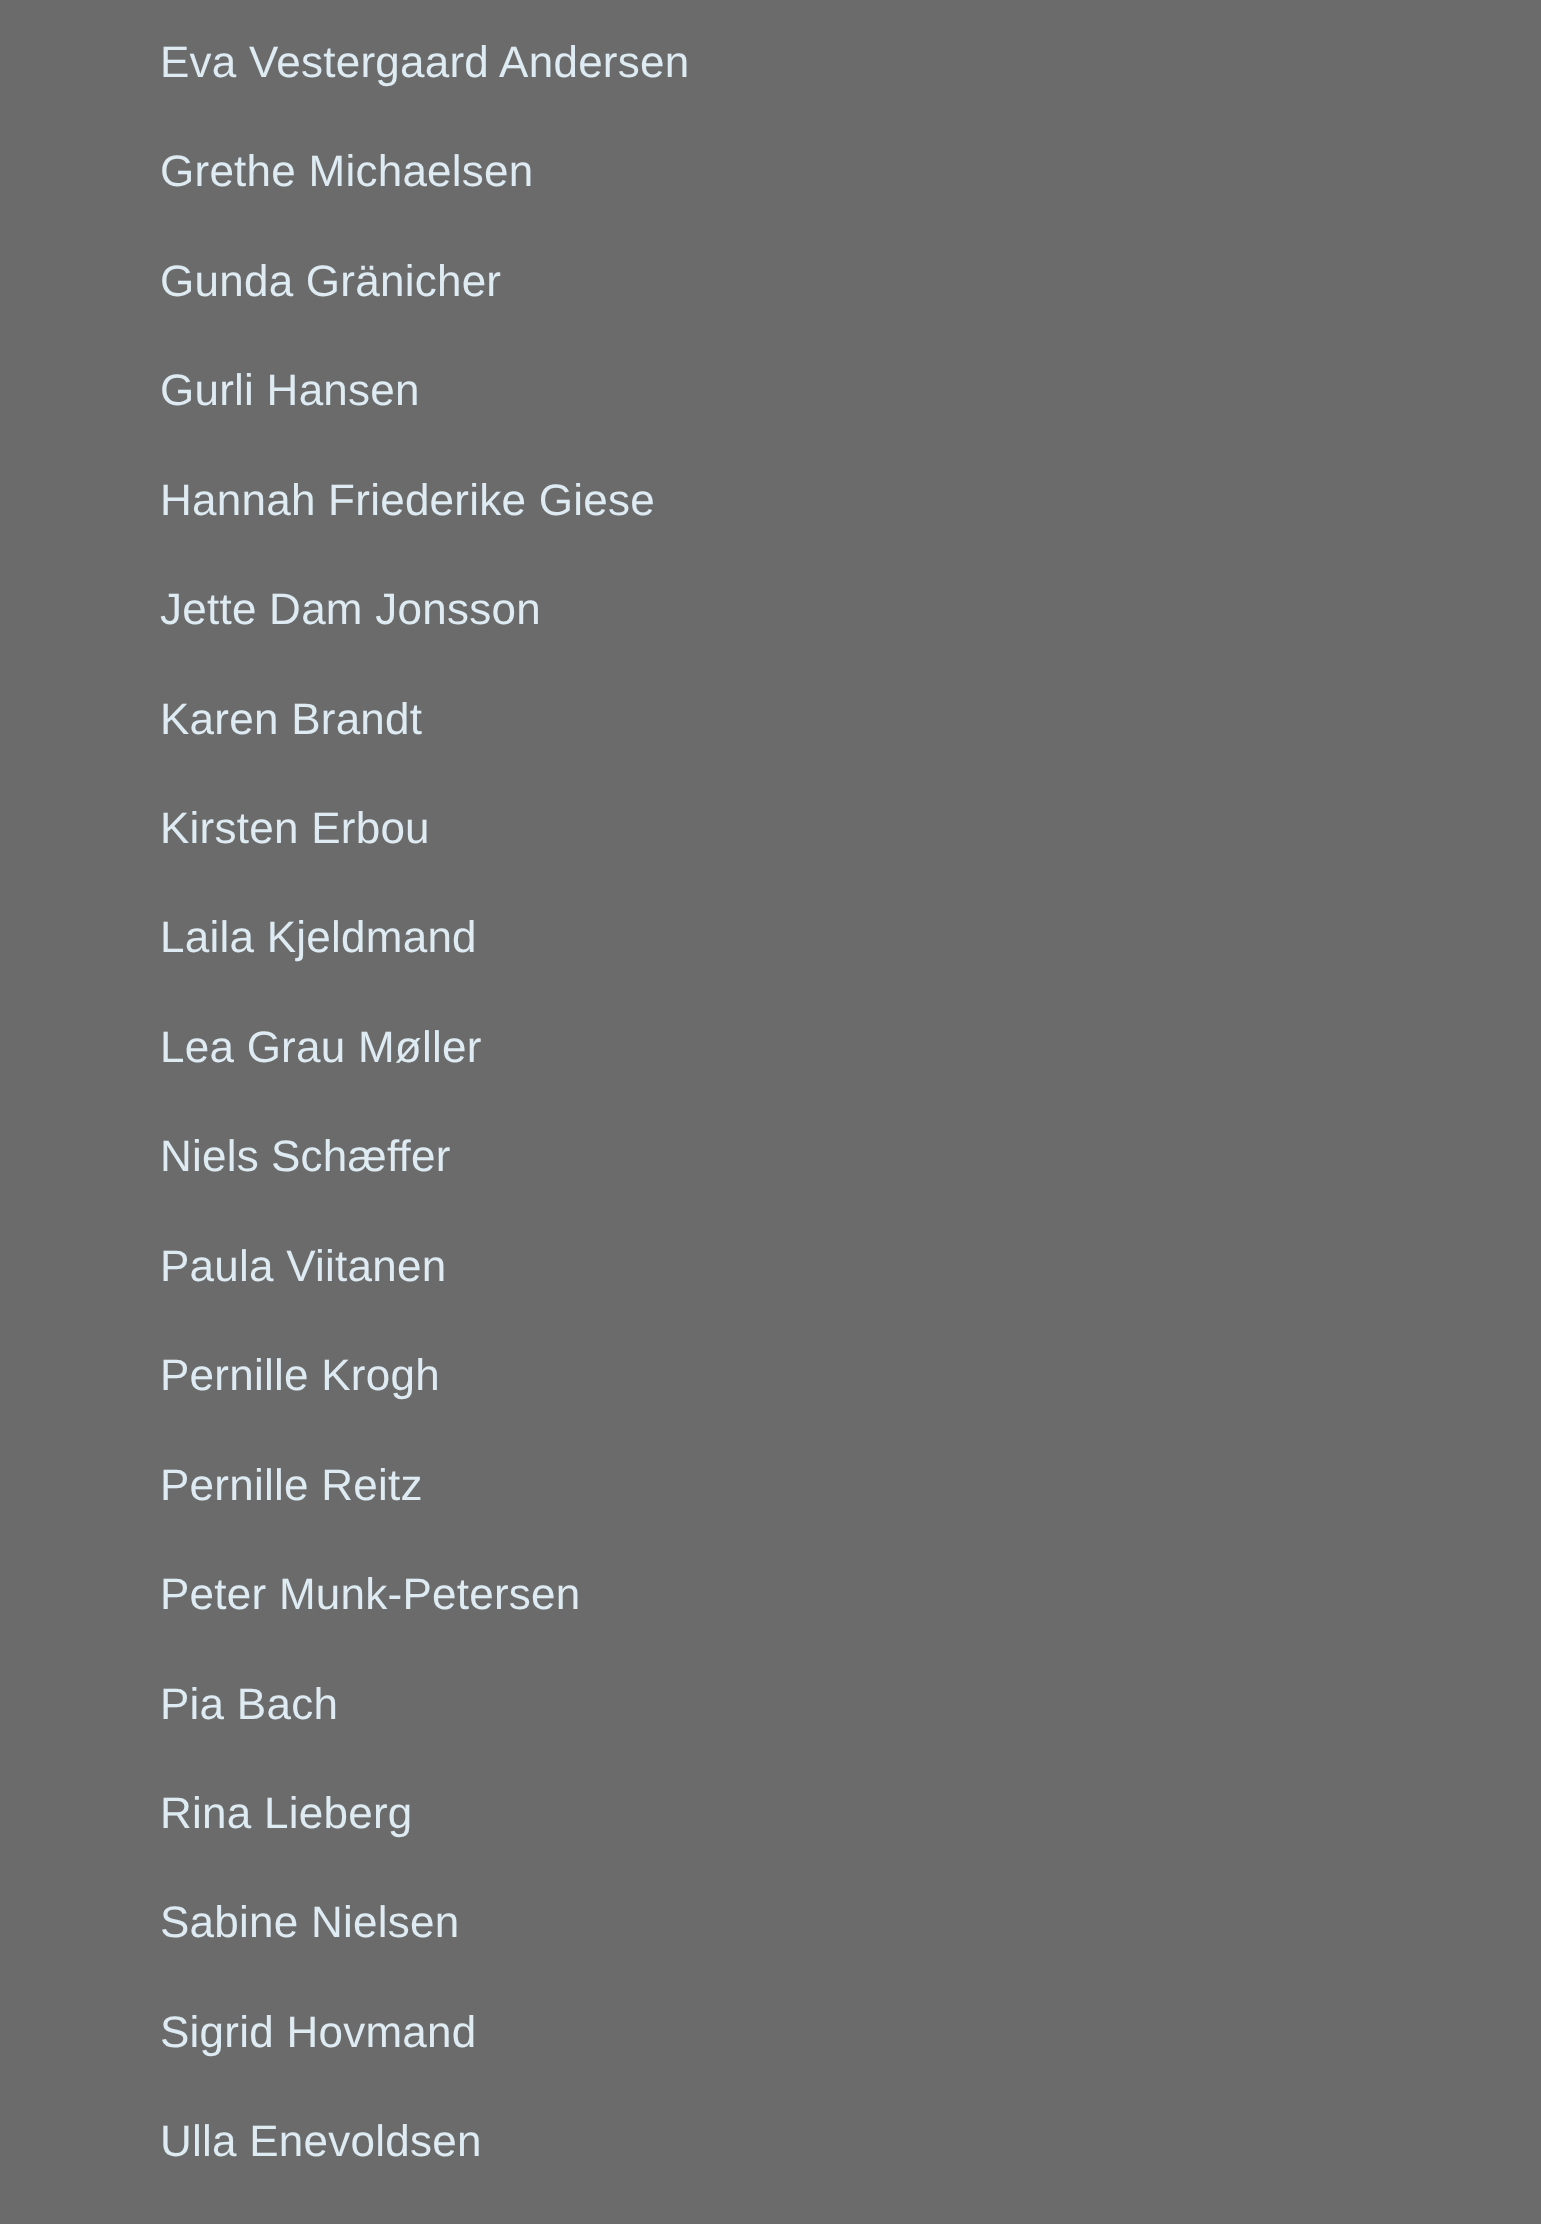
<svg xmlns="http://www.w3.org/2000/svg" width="1541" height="2224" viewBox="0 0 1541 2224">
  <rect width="100%" height="100%" fill="#6b6b6b"/>
  <text x="160" y="77" font-family="Liberation Sans" font-size="44" letter-spacing="0.25" fill="#deebf2">Eva Vestergaard Andersen</text>
  <text x="160" y="186" font-family="Liberation Sans" font-size="44" letter-spacing="0.25" fill="#deebf2">Grethe Michaelsen</text>
  <text x="160" y="296" font-family="Liberation Sans" font-size="44" letter-spacing="0.25" fill="#deebf2">Gunda Gränicher</text>
  <text x="160" y="405" font-family="Liberation Sans" font-size="44" letter-spacing="0.25" fill="#deebf2">Gurli Hansen</text>
  <text x="160" y="515" font-family="Liberation Sans" font-size="44" letter-spacing="0.25" fill="#deebf2">Hannah Friederike Giese</text>
  <text x="160" y="624" font-family="Liberation Sans" font-size="44" letter-spacing="0.25" fill="#deebf2">Jette Dam Jonsson</text>
  <text x="160" y="734" font-family="Liberation Sans" font-size="44" letter-spacing="0.25" fill="#deebf2">Karen Brandt</text>
  <text x="160" y="843" font-family="Liberation Sans" font-size="44" letter-spacing="0.25" fill="#deebf2">Kirsten Erbou</text>
  <text x="160" y="952" font-family="Liberation Sans" font-size="44" letter-spacing="0.25" fill="#deebf2">Laila Kjeldmand</text>
  <text x="160" y="1062" font-family="Liberation Sans" font-size="44" letter-spacing="0.25" fill="#deebf2">Lea Grau Møller</text>
  <text x="160" y="1171" font-family="Liberation Sans" font-size="44" letter-spacing="0.25" fill="#deebf2">Niels</text>
  <text x="271" y="1171" font-family="Liberation Sans" font-size="44" letter-spacing="0.25" fill="#deebf2">Schæffer</text>
  <text x="160" y="1281" font-family="Liberation Sans" font-size="44" letter-spacing="0.25" fill="#deebf2">Paula Viitanen</text>
  <text x="160" y="1390" font-family="Liberation Sans" font-size="44" letter-spacing="0.25" fill="#deebf2">Pernille Krogh</text>
  <text x="160" y="1500" font-family="Liberation Sans" font-size="44" letter-spacing="0.25" fill="#deebf2">Pernille Reitz</text>
  <text x="160" y="1609" font-family="Liberation Sans" font-size="44" letter-spacing="0.25" fill="#deebf2">Peter Munk-Petersen</text>
  <text x="160" y="1719" font-family="Liberation Sans" font-size="44" letter-spacing="0.25" fill="#deebf2">Pia Bach</text>
  <text x="160" y="1828" font-family="Liberation Sans" font-size="44" letter-spacing="0.25" fill="#deebf2">Rina Lieberg</text>
  <text x="160" y="1937" font-family="Liberation Sans" font-size="44" letter-spacing="0.25" fill="#deebf2">Sabine Nielsen</text>
  <text x="160" y="2047" font-family="Liberation Sans" font-size="44" letter-spacing="0.25" fill="#deebf2">Sigrid Hovmand</text>
  <text x="160" y="2156" font-family="Liberation Sans" font-size="44" letter-spacing="0.25" fill="#deebf2">Ulla Enevoldsen</text>
</svg>
